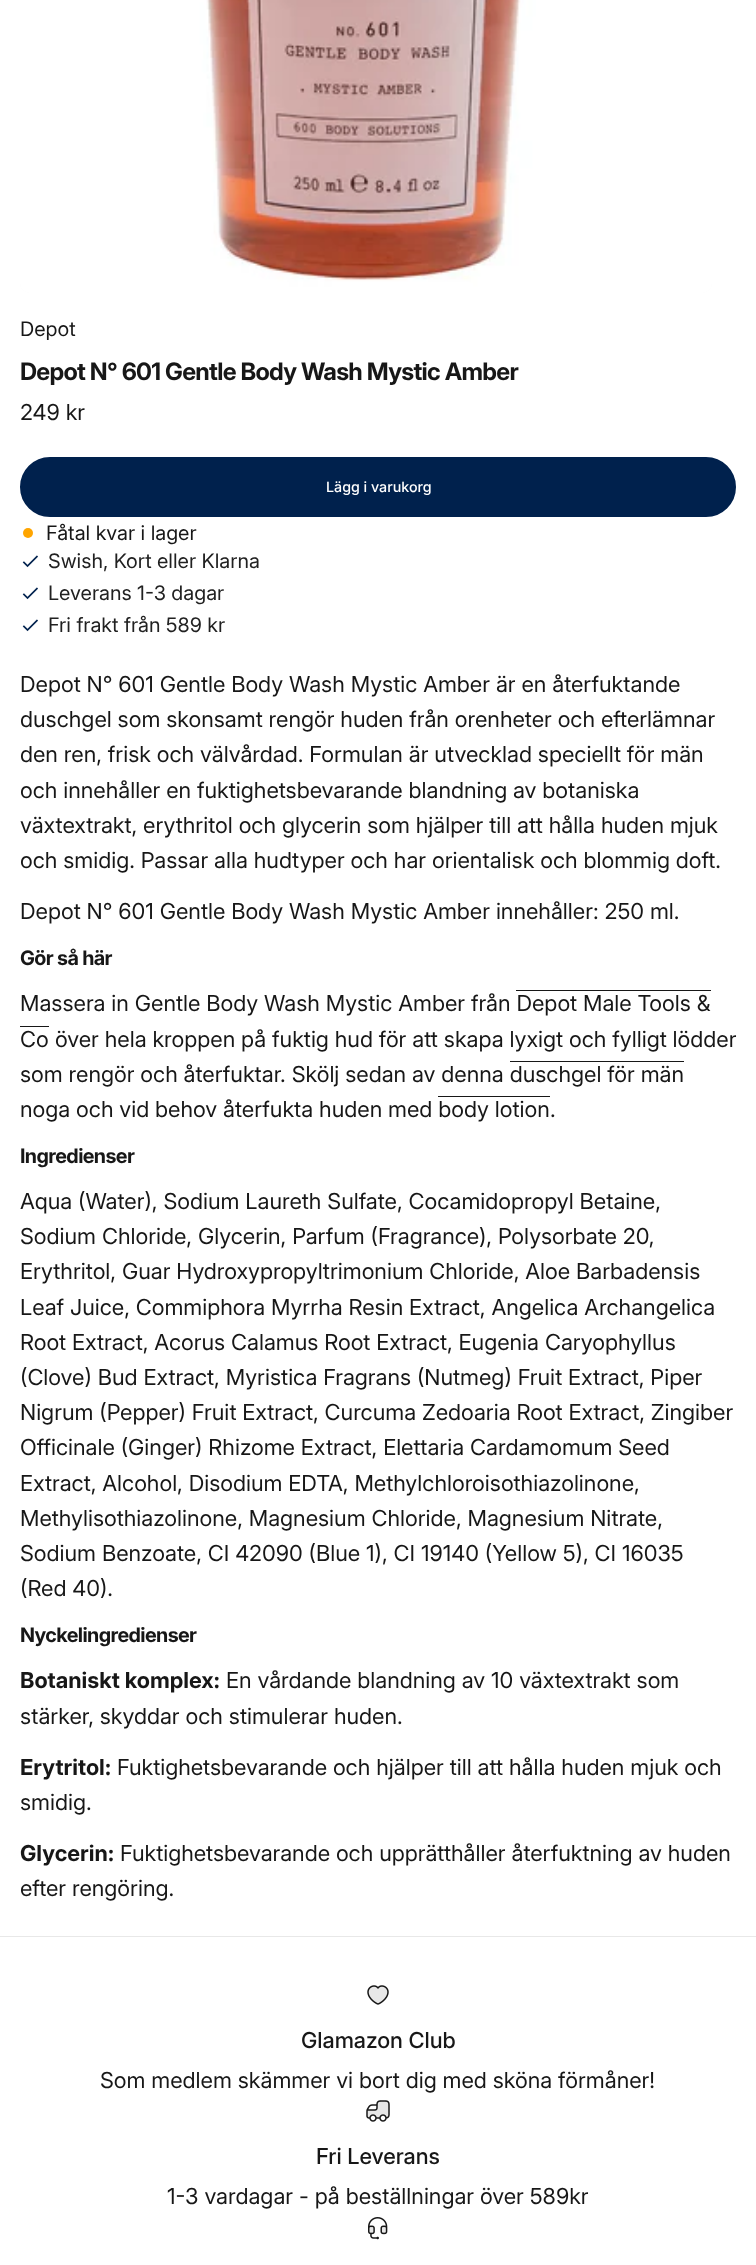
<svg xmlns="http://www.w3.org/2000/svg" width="756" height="2265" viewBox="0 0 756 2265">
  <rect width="100%" height="100%" fill="#ffffff"/>
  <rect x="20" y="-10" width="692" height="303" rx="10" fill="#fafafa"/>
  <image x="20" y="0" width="692" height="293" href="img1.png"/>
  <text x="20" y="336" font-family="Inter" font-size="20" fill="#171717">Depot</text>
  <text x="20" y="380" font-family="Inter" font-size="24" font-weight="bold" letter-spacing="-0.7" fill="#171717">Depot N° 601 Gentle Body Wash Mystic Amber</text>
  <text x="20" y="420" font-family="'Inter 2'" font-size="22" fill="#171717">249 kr</text>
  <rect x="21" y="458" width="714" height="58" rx="29" fill="#00214d" stroke="#00214d" stroke-width="2"/>
  <text x="326" y="492" font-family="Inter" font-size="14.25" font-weight="500" fill="#ffffff">Lägg i varukorg</text>
  <circle cx="28" cy="533" r="5" fill="#ffa500"/>
  <text x="46" y="540" font-family="Inter" font-size="20" fill="#171717">Fåtal kvar i lager</text>
  <image x="22" y="555" width="16" height="13" href="img2.png"/>
  <text x="48" y="568" font-family="Inter" font-size="20" fill="#212121">Swish, Kort eller Klarna</text>
  <image x="22" y="587" width="16" height="13" href="img2.png"/>
  <text x="48" y="600" font-family="Inter" font-size="20" fill="#212121">Leverans 1-3 dagar</text>
  <image x="22" y="619" width="16" height="13" href="img2.png"/>
  <text x="48" y="632" font-family="Inter" font-size="20" fill="#212121">Fri frakt från 589 kr</text>
  <text x="20" y="692" font-family="'Inter 2'" font-size="22" fill="#171717">Depot N° 601 Gentle Body Wash Mystic Amber är en återfuktande</text>
  <text x="20" y="727" font-family="'Inter 2'" font-size="22" fill="#171717">duschgel som skonsamt rengör huden från orenheter och efterlämnar</text>
  <text x="20" y="762" font-family="'Inter 2'" font-size="22" fill="#171717">den ren, frisk och välvårdad. Formulan är utvecklad speciellt för män</text>
  <text x="20" y="798" font-family="'Inter 2'" font-size="22" fill="#171717">och innehåller en fuktighetsbevarande blandning av botaniska</text>
  <text x="20" y="833" font-family="'Inter 2'" font-size="22" fill="#171717">växtextrakt, erythritol och glycerin som hjälper till att hålla huden mjuk</text>
  <text x="20" y="868" font-family="'Inter 2'" font-size="22" fill="#171717">och smidig. Passar alla hudtyper och har orientalisk och blommig doft.</text>
  <text x="20" y="919" font-family="'Inter 2'" font-size="22" fill="#171717">Depot N° 601 Gentle Body Wash Mystic Amber innehåller: 250 ml.</text>
  <text x="20" y="965" font-family="'Inter 2'" font-size="20" font-weight="bold" letter-spacing="-0.6" fill="#171717">Gör så här</text>
  <text x="20" y="1011" font-family="'Inter 2'" font-size="22" fill="#171717">Massera in Gentle Body Wash Mystic Amber från Depot Male Tools &amp;</text>
  <text x="20" y="1047" font-family="'Inter 2'" font-size="22" fill="#171717">Co</text>
  <rect x="516" y="990" width="195" height="1" fill="#171717"/>
  <rect x="20" y="1026" width="29" height="1" fill="#171717"/>
  <text x="55" y="1047" font-family="'Inter 2'" font-size="22" fill="#171717">över hela kroppen på fuktig hud för att skapa lyxigt och fylligt lödder</text>
  <rect x="510" y="1061" width="174" height="1" fill="#171717"/>
  <text x="20" y="1082" font-family="'Inter 2'" font-size="22" fill="#171717">som rengör och återfuktar. Skölj sedan av denna duschgel för män</text>
  <rect x="438" y="1096" width="112" height="1" fill="#171717"/>
  <text x="20" y="1117" font-family="'Inter 2'" font-size="22" fill="#171717">noga och vid behov återfukta huden med body lotion</text>
  <text x="550" y="1117" font-family="'Inter 2'" font-size="22" fill="#171717">.</text>
  <text x="20" y="1163" font-family="'Inter 2'" font-size="20" font-weight="bold" letter-spacing="-0.6" fill="#171717">Ingredienser</text>
  <text x="20" y="1209" font-family="'Inter 2'" font-size="22" fill="#171717">Aqua (Water), Sodium Laureth Sulfate, Cocamidopropyl Betaine,</text>
  <text x="20" y="1244" font-family="'Inter 2'" font-size="22" fill="#171717">Sodium Chloride, Glycerin, Parfum (Fragrance), Polysorbate 20,</text>
  <text x="20" y="1279" font-family="'Inter 2'" font-size="22" fill="#171717">Erythritol, Guar Hydroxypropyltrimonium Chloride, Aloe Barbadensis</text>
  <text x="20" y="1315" font-family="'Inter 2'" font-size="22" fill="#171717">Leaf Juice, Commiphora Myrrha Resin Extract, Angelica Archangelica</text>
  <text x="20" y="1350" font-family="'Inter 2'" font-size="22" fill="#171717">Root Extract, Acorus Calamus Root Extract, Eugenia Caryophyllus</text>
  <text x="20" y="1385" font-family="'Inter 2'" font-size="22" fill="#171717">(Clove) Bud Extract, Myristica Fragrans (Nutmeg) Fruit Extract, Piper</text>
  <text x="20" y="1420" font-family="'Inter 2'" font-size="22" fill="#171717">Nigrum (Pepper) Fruit Extract, Curcuma Zedoaria Root Extract, Zingiber</text>
  <text x="20" y="1455" font-family="'Inter 2'" font-size="22" fill="#171717">Officinale (Ginger) Rhizome Extract, Elettaria Cardamomum Seed</text>
  <text x="20" y="1491" font-family="'Inter 2'" font-size="22" fill="#171717">Extract, Alcohol, Disodium EDTA, Methylchloroisothiazolinone,</text>
  <text x="20" y="1526" font-family="'Inter 2'" font-size="22" fill="#171717">Methylisothiazolinone, Magnesium Chloride, Magnesium Nitrate,</text>
  <text x="20" y="1561" font-family="'Inter 2'" font-size="22" fill="#171717">Sodium Benzoate, CI 42090 (Blue 1), CI 19140 (Yellow 5), CI 16035</text>
  <text x="20" y="1596" font-family="'Inter 2'" font-size="22" fill="#171717">(Red 40).</text>
  <text x="20" y="1642" font-family="'Inter 2'" font-size="20" font-weight="bold" letter-spacing="-0.6" fill="#171717">Nyckelingredienser</text>
  <text x="20" y="1688" font-family="'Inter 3'" font-size="22" font-weight="bold" fill="#171717">Botaniskt komplex:</text>
  <text x="226" y="1688" font-family="'Inter 2'" font-size="22" fill="#171717">En vårdande blandning av 10 växtextrakt som</text>
  <text x="20" y="1724" font-family="'Inter 2'" font-size="22" fill="#171717">stärker, skyddar och stimulerar huden.</text>
  <text x="20" y="1775" font-family="'Inter 3'" font-size="22" font-weight="bold" fill="#171717">Erytritol:</text>
  <text x="117" y="1775" font-family="'Inter 2'" font-size="22" fill="#171717">Fuktighetsbevarande och hjälper till att hålla huden mjuk och</text>
  <text x="20" y="1810" font-family="'Inter 2'" font-size="22" fill="#171717">smidig.</text>
  <text x="20" y="1861" font-family="'Inter 3'" font-size="22" font-weight="bold" fill="#171717">Glycerin:</text>
  <text x="120" y="1861" font-family="'Inter 2'" font-size="22" fill="#171717">Fuktighetsbevarande och upprätthåller återfuktning av huden</text>
  <text x="20" y="1896" font-family="'Inter 2'" font-size="22" fill="#171717">efter rengöring.</text>
  <rect x="0" y="1936" width="756" height="1" fill="#e8e8e8"/>
  <image x="367" y="1985" width="22" height="20" href="img3.png"/>
  <text x="301" y="2048" font-family="'Inter 2'" font-size="22" font-weight="500" fill="#171717">Glamazon Club</text>
  <text x="100" y="2088" font-family="'Inter 2'" font-size="22" fill="#171717">Som medlem skämmer vi bort dig med sköna förmåner!</text>
  <image x="366" y="2100" width="24" height="22" href="img4.png"/>
  <text x="316" y="2164" font-family="'Inter 2'" font-size="22" font-weight="500" fill="#171717">Fri Leverans</text>
  <text x="167" y="2204" font-family="'Inter 2'" font-size="22" fill="#171717">1-3 vardagar - på beställningar över 589kr</text>
  <image x="368" y="2217" width="20" height="23" href="img5.png"/>
</svg>
